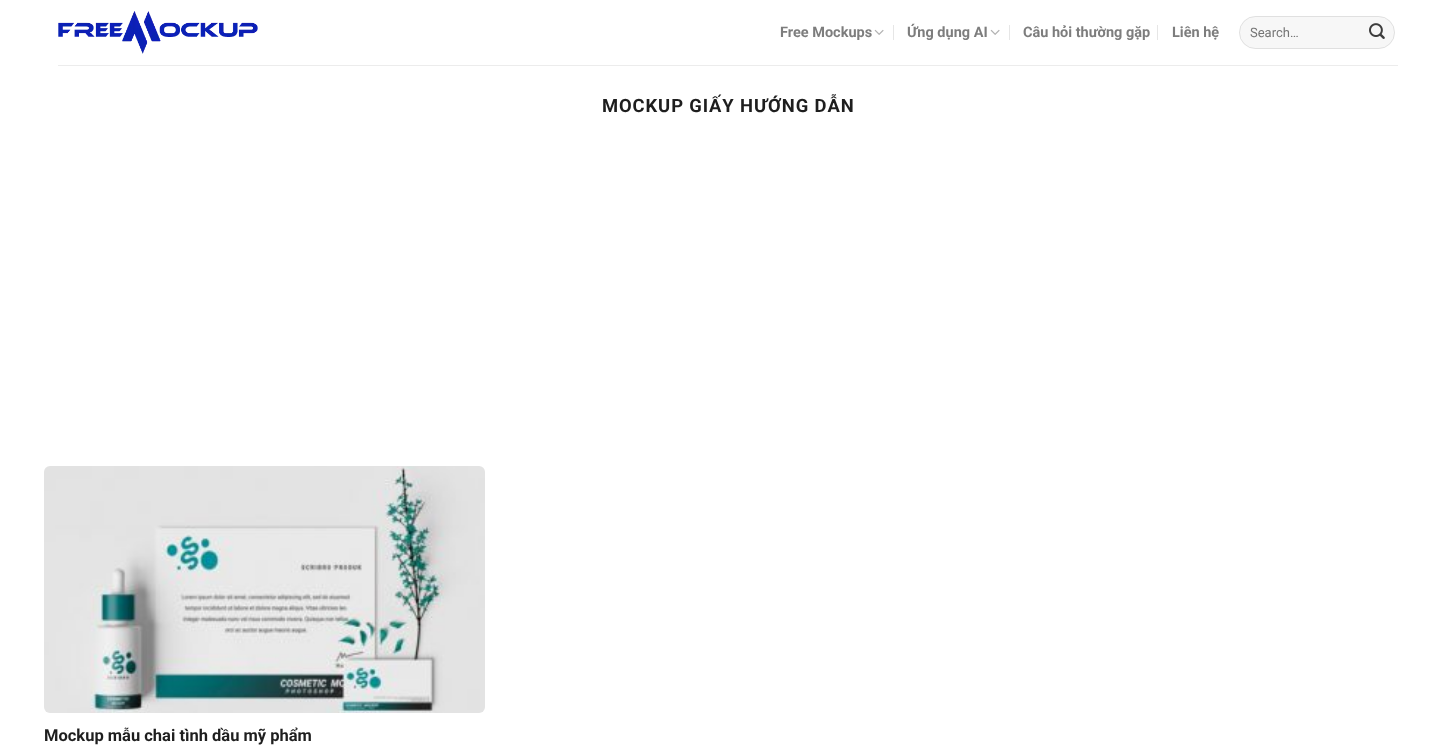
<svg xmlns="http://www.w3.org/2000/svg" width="1456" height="748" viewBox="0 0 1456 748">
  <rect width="100%" height="100%" fill="#ffffff"/>
  <image x="58" y="11" width="200" height="43" href="img1.png"/>
  <text x="780" y="37" font-family="Roboto" font-size="14.5" font-weight="bold" fill="#7d7d7d">Free Mockups</text>
  <image x="874" y="29" width="10" height="6" href="img2.png"/>
  <rect x="893" y="25" width="1" height="15" fill="#e6e6e6"/>
  <text x="907" y="37" font-family="Roboto" font-size="14.5" font-weight="bold" fill="#7d7d7d">Ứng dụng AI</text>
  <image x="990" y="29" width="10" height="6" href="img2.png"/>
  <rect x="1009" y="25" width="1" height="15" fill="#e6e6e6"/>
  <text x="1023" y="37" font-family="Roboto" font-size="14.5" font-weight="bold" fill="#7d7d7d">Câu hỏi thường gặp</text>
  <rect x="1157" y="25" width="1" height="15" fill="#e6e6e6"/>
  <text x="1172" y="37" font-family="Roboto" font-size="14.5" font-weight="bold" fill="#7d7d7d">Liên hệ</text>
  <rect x="1239" y="16" width="156" height="33" rx="16.5" fill="#f7f7f7"/>
  <rect x="1239.5" y="16.5" width="155" height="32" rx="16" fill="none" stroke="#000000" stroke-opacity="0.09"/>
  <text x="1250" y="37" font-family="Roboto" font-size="13" fill="#757575">Search…</text>
  <image x="1369" y="23" width="16" height="16" href="img3.png"/>
  <rect x="58" y="65" width="1340" height="1" fill="#ececec"/>
  <text x="602" y="112" font-family="Roboto" font-size="18.4" font-weight="bold" letter-spacing="0.9" fill="#1e1e1e">MOCKUP GIẤY HƯỚNG DẪN</text>
  <image x="44" y="466" width="441" height="247" href="img4.png"/>
  <text x="44" y="741" font-family="Roboto" font-size="16.5" font-weight="bold" fill="#1e1e1e">Mockup mẫu chai tình dầu mỹ phẩm</text>
</svg>
